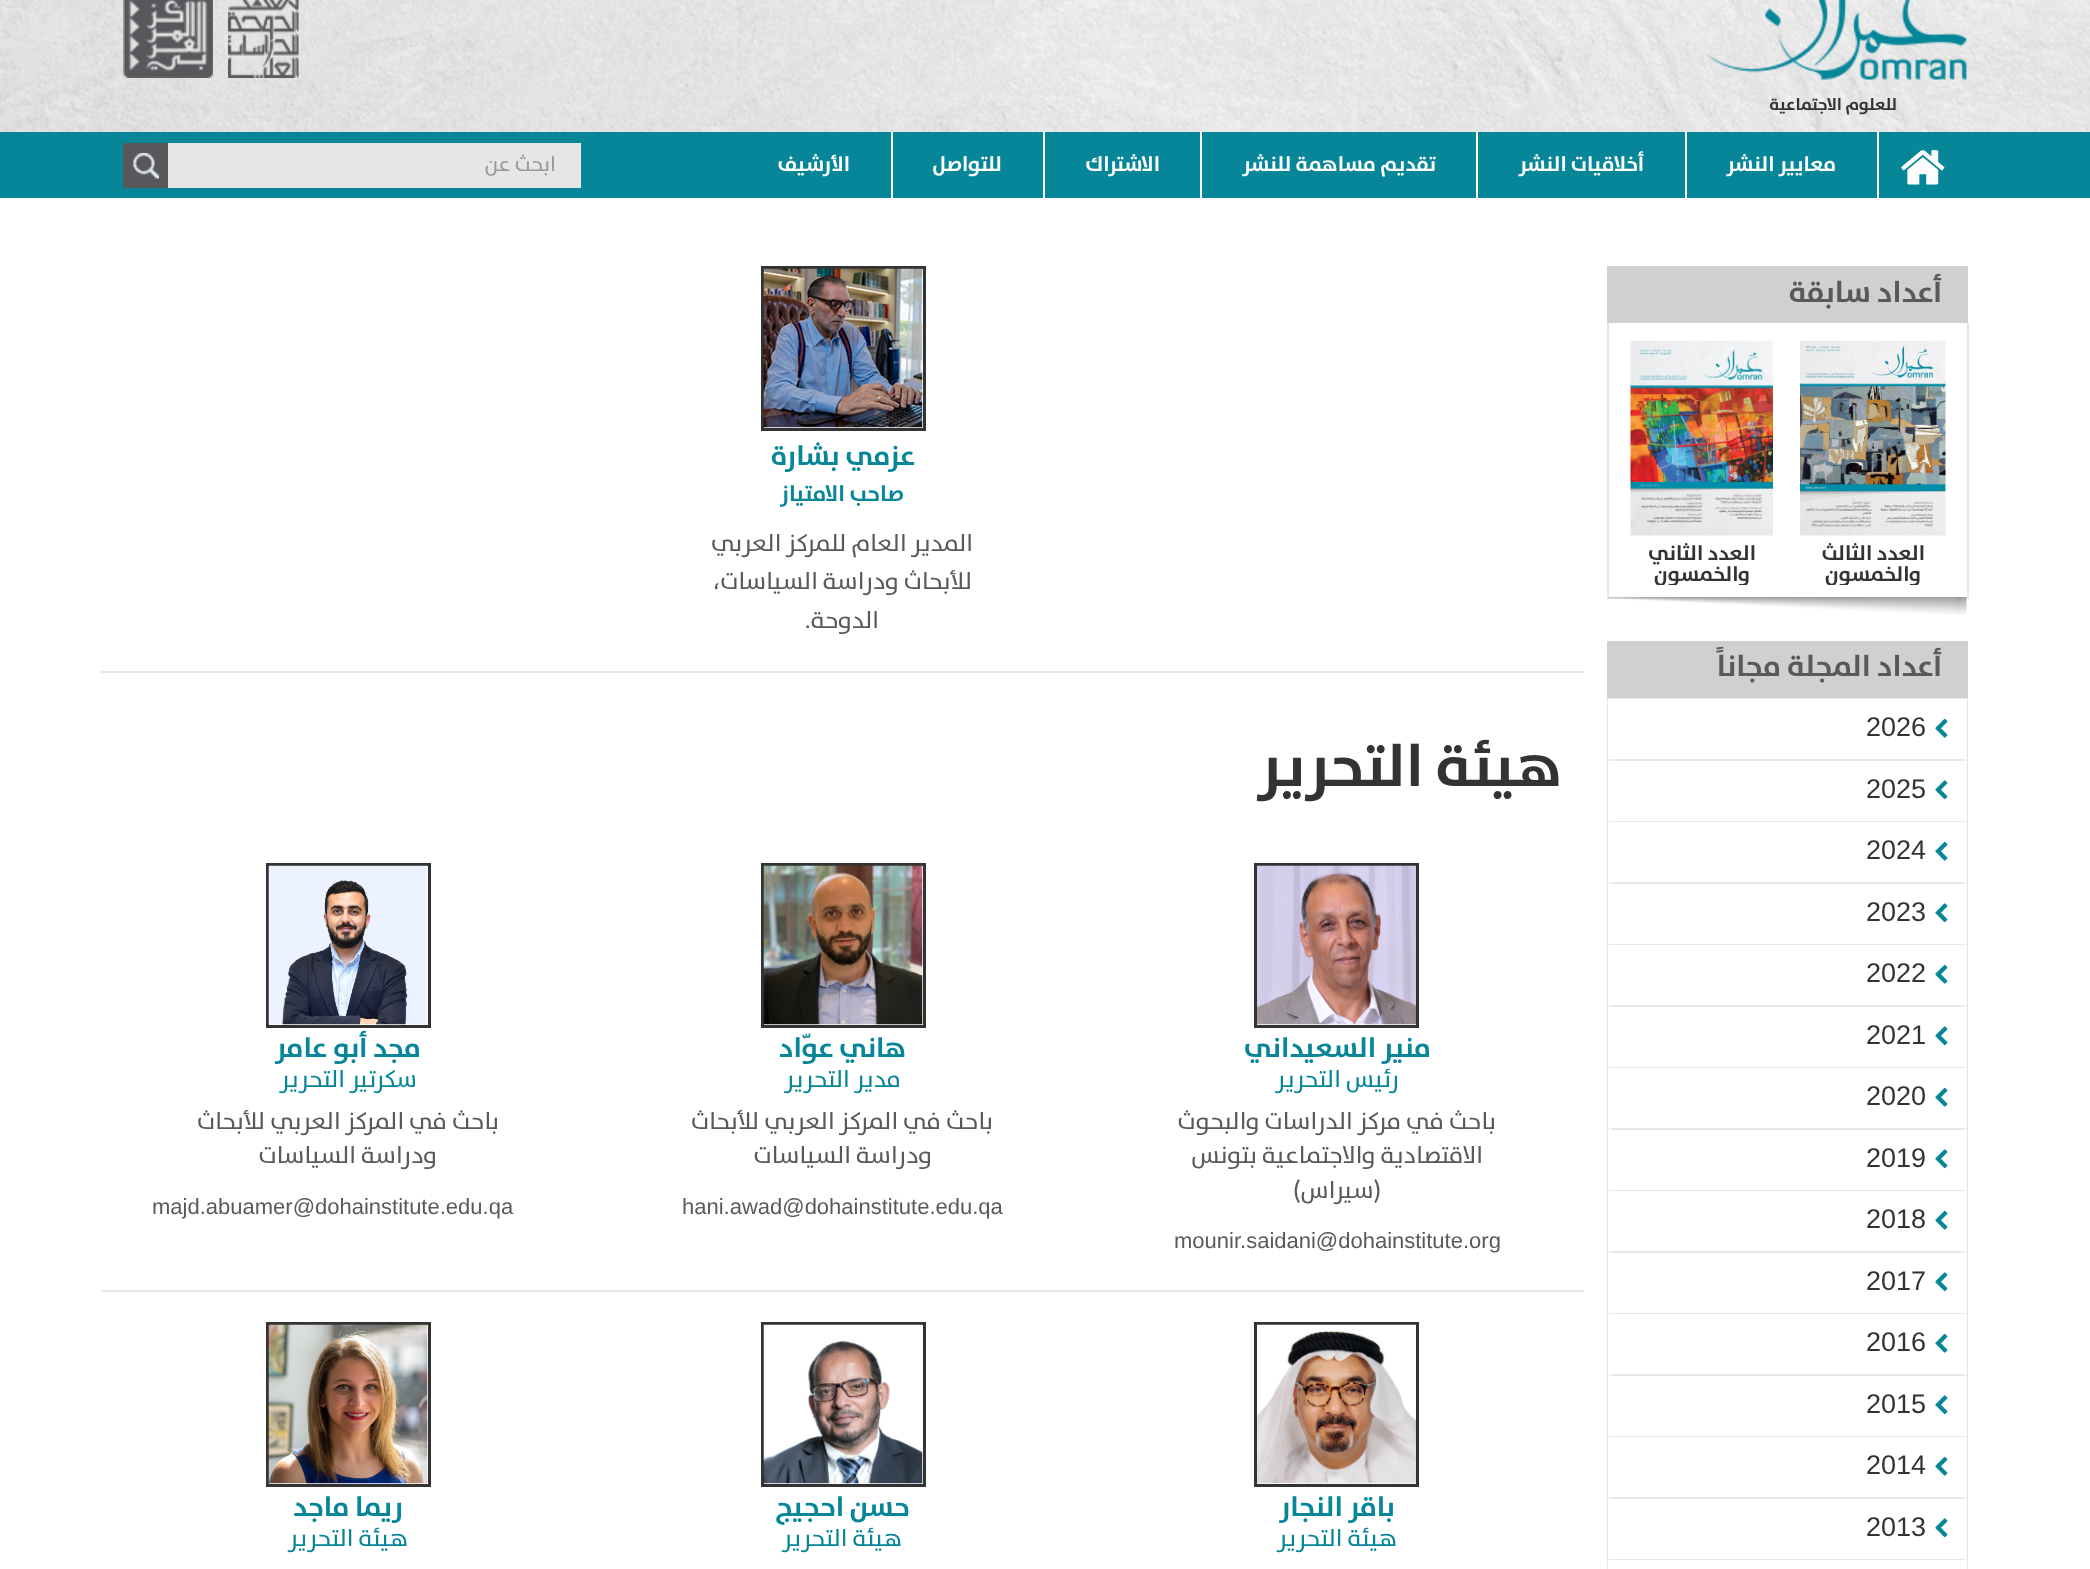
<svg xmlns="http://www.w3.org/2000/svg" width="2090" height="1569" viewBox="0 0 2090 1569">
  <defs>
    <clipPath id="clip1"><rect x="1794" y="341" width="158" height="244"/></clipPath>
    <clipPath id="clip2"><rect x="1623" y="341" width="158" height="244"/></clipPath>
    <filter id="blur1" x="-50%" y="-200%" width="200%" height="500%"><feGaussianBlur stdDeviation="1"/></filter>
  </defs>
  <rect width="100%" height="100%" fill="#ffffff"/>
  <image x="0" y="0" width="2090" height="132" href="img1.png"/>
  <image x="228" y="0" width="71" height="78" href="img2.png"/>
  <image x="123" y="0" width="90" height="78" href="img3.png"/>
  <image x="1707" y="0" width="260" height="80" href="img4.png"/>
  <text x="1897" y="110" font-family="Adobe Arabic" font-size="17" font-weight="bold" direction="rtl" fill="#333333">للعلوم الاجتماعية</text>
  <rect x="0" y="132" width="2090" height="66" fill="#068698"/>
  <rect x="1877" y="132" width="2" height="66" fill="#ffffff"/>
  <image x="1901" y="150" width="44" height="35" href="img5.png"/>
  <rect x="1685" y="132" width="2" height="66" fill="#ffffff"/>
  <text x="1836" y="171" font-family="Adobe Arabic" font-size="21" font-weight="bold" direction="rtl" fill="#ffffff">معايير النشر</text>
  <rect x="1476" y="132" width="2" height="66" fill="#ffffff"/>
  <text x="1644" y="171" font-family="Adobe Arabic" font-size="21" font-weight="bold" direction="rtl" fill="#ffffff">أخلاقيات النشر</text>
  <rect x="1200" y="132" width="2" height="66" fill="#ffffff"/>
  <text x="1436" y="171" font-family="Adobe Arabic" font-size="21" font-weight="bold" direction="rtl" fill="#ffffff">تقديم مساهمة للنشر</text>
  <rect x="1043" y="132" width="2" height="66" fill="#ffffff"/>
  <text x="1160" y="171" font-family="Adobe Arabic" font-size="21" font-weight="bold" direction="rtl" fill="#ffffff">الاشتراك</text>
  <rect x="891" y="132" width="2" height="66" fill="#ffffff"/>
  <text x="1002" y="171" font-family="Adobe Arabic" font-size="21" font-weight="bold" direction="rtl" fill="#ffffff">للتواصل</text>
  <text x="850" y="171" font-family="Adobe Arabic" font-size="21" font-weight="bold" direction="rtl" fill="#ffffff">الأرشيف</text>
  <rect x="123" y="143" width="45" height="45" fill="#58585c"/>
  <rect x="169" y="144" width="411" height="43" fill="#e6e6e7" stroke="#e8e8e8" stroke-width="2"/>
  <text x="556" y="171" font-family="Adobe Arabic" font-size="21" font-weight="500" direction="rtl" fill="#999999">ابحث عن</text>
  <image x="133" y="153" width="26" height="26" href="img6.png"/>
  <rect x="1607" y="266" width="361" height="57" fill="#d1d0cf"/>
  <text x="1942" y="302" font-family="Adobe Arabic" font-size="30" font-weight="bold" direction="rtl" fill="#58595b">أعداد سابقة</text>
  <rect x="1967" y="323" width="2" height="276" fill="#e7e7e7"/>
  <rect x="1607" y="597" width="361" height="2" fill="#e7e7e7"/>
  <rect x="1607" y="323" width="2" height="276" fill="#e7e7e7"/>
  <image x="1800" y="340" width="146" height="196" href="img7.png"/>
  <text x="1925" y="560" font-family="Adobe Arabic" font-size="21" font-weight="bold" direction="rtl" fill="#333333">العدد الثالث</text>
  <g clip-path="url(#clip1)">
    <text x="1921" y="581" font-family="Adobe Arabic" font-size="21" font-weight="bold" direction="rtl" fill="#333333">والخمسون</text>
  </g>
  <image x="1630" y="340" width="143" height="196" href="img8.png"/>
  <text x="1756" y="560" font-family="Adobe Arabic" font-size="21" font-weight="bold" direction="rtl" fill="#333333">العدد الثاني</text>
  <g clip-path="url(#clip2)">
    <text x="1750" y="581" font-family="Adobe Arabic" font-size="21" font-weight="bold" direction="rtl" fill="#333333">والخمسون</text>
  </g>
  <image x="1608" y="597" width="359" height="18" href="img9.png"/>
  <rect x="1607" y="641" width="361" height="57" fill="#d1d0cf"/>
  <text x="1942" y="676" font-family="Adobe Arabic" font-size="30" font-weight="bold" direction="rtl" fill="#58595b">أعداد المجلة مجاناً</text>
  <rect x="1608" y="699" width="359" height="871" fill="none" stroke="#e8e8e8" stroke-width="2"/>
  <rect x="1608" y="701" width="359" height="61" rx="6" fill="#000000" fill-opacity="0.05" filter="url(#blur1)"/>
  <rect x="1608" y="699" width="359" height="62" rx="6" fill="#ffffff"/>
  <rect x="1611" y="759" width="353" height="2" fill="#e8e8e8"/>
  <rect x="1608" y="699" width="359" height="60" fill="#ffffff"/>
  <image x="1935" y="718" width="13" height="20" href="img10.png"/>
  <text x="1866" y="736" font-family="Liberation Sans" font-size="27" fill="#333333">2026</text>
  <rect x="1608" y="762" width="359" height="62" rx="6" fill="#000000" fill-opacity="0.05" filter="url(#blur1)"/>
  <rect x="1611" y="821" width="353" height="1" fill="#e8e8e8"/>
  <rect x="1608" y="761" width="359" height="60" fill="#ffffff"/>
  <image x="1935" y="780" width="13" height="20" href="img11.png"/>
  <text x="1866" y="798" font-family="Liberation Sans" font-size="27" fill="#333333">2025</text>
  <rect x="1608" y="824" width="359" height="61" rx="6" fill="#000000" fill-opacity="0.05" filter="url(#blur1)"/>
  <rect x="1608" y="822" width="359" height="62" rx="6" fill="#ffffff"/>
  <rect x="1611" y="882" width="353" height="2" fill="#e8e8e8"/>
  <rect x="1608" y="822" width="359" height="60" fill="#ffffff"/>
  <image x="1935" y="841" width="13" height="20" href="img10.png"/>
  <text x="1866" y="859" font-family="Liberation Sans" font-size="27" fill="#333333">2024</text>
  <rect x="1608" y="885" width="359" height="62" rx="6" fill="#000000" fill-opacity="0.05" filter="url(#blur1)"/>
  <rect x="1611" y="944" width="353" height="1" fill="#e8e8e8"/>
  <rect x="1608" y="884" width="359" height="60" fill="#ffffff"/>
  <image x="1935" y="903" width="13" height="20" href="img11.png"/>
  <text x="1866" y="921" font-family="Liberation Sans" font-size="27" fill="#333333">2023</text>
  <rect x="1608" y="947" width="359" height="61" rx="6" fill="#000000" fill-opacity="0.05" filter="url(#blur1)"/>
  <rect x="1608" y="945" width="359" height="62" rx="6" fill="#ffffff"/>
  <rect x="1611" y="1005" width="353" height="2" fill="#e8e8e8"/>
  <rect x="1608" y="945" width="359" height="60" fill="#ffffff"/>
  <image x="1935" y="964" width="13" height="20" href="img10.png"/>
  <text x="1866" y="982" font-family="Liberation Sans" font-size="27" fill="#333333">2022</text>
  <rect x="1608" y="1008" width="359" height="62" rx="6" fill="#000000" fill-opacity="0.05" filter="url(#blur1)"/>
  <rect x="1611" y="1067" width="353" height="1" fill="#e8e8e8"/>
  <rect x="1608" y="1007" width="359" height="60" fill="#ffffff"/>
  <image x="1935" y="1026" width="13" height="20" href="img11.png"/>
  <text x="1866" y="1044" font-family="Liberation Sans" font-size="27" fill="#333333">2021</text>
  <rect x="1608" y="1070" width="359" height="61" rx="6" fill="#000000" fill-opacity="0.05" filter="url(#blur1)"/>
  <rect x="1608" y="1068" width="359" height="62" rx="6" fill="#ffffff"/>
  <rect x="1611" y="1128" width="353" height="2" fill="#e8e8e8"/>
  <rect x="1608" y="1068" width="359" height="60" fill="#ffffff"/>
  <image x="1935" y="1087" width="13" height="20" href="img10.png"/>
  <text x="1866" y="1105" font-family="Liberation Sans" font-size="27" fill="#333333">2020</text>
  <rect x="1608" y="1131" width="359" height="62" rx="6" fill="#000000" fill-opacity="0.05" filter="url(#blur1)"/>
  <rect x="1611" y="1190" width="353" height="1" fill="#e8e8e8"/>
  <rect x="1608" y="1130" width="359" height="60" fill="#ffffff"/>
  <image x="1935" y="1149" width="13" height="20" href="img11.png"/>
  <text x="1866" y="1167" font-family="Liberation Sans" font-size="27" fill="#333333">2019</text>
  <rect x="1608" y="1193" width="359" height="61" rx="6" fill="#000000" fill-opacity="0.05" filter="url(#blur1)"/>
  <rect x="1608" y="1191" width="359" height="62" rx="6" fill="#ffffff"/>
  <rect x="1611" y="1251" width="353" height="2" fill="#e8e8e8"/>
  <rect x="1608" y="1191" width="359" height="60" fill="#ffffff"/>
  <image x="1935" y="1210" width="13" height="20" href="img10.png"/>
  <text x="1866" y="1228" font-family="Liberation Sans" font-size="27" fill="#333333">2018</text>
  <rect x="1608" y="1254" width="359" height="62" rx="6" fill="#000000" fill-opacity="0.05" filter="url(#blur1)"/>
  <rect x="1611" y="1313" width="353" height="1" fill="#e8e8e8"/>
  <rect x="1608" y="1253" width="359" height="60" fill="#ffffff"/>
  <image x="1935" y="1272" width="13" height="20" href="img11.png"/>
  <text x="1866" y="1290" font-family="Liberation Sans" font-size="27" fill="#333333">2017</text>
  <rect x="1608" y="1316" width="359" height="61" rx="6" fill="#000000" fill-opacity="0.05" filter="url(#blur1)"/>
  <rect x="1608" y="1314" width="359" height="62" rx="6" fill="#ffffff"/>
  <rect x="1611" y="1374" width="353" height="2" fill="#e8e8e8"/>
  <rect x="1608" y="1314" width="359" height="60" fill="#ffffff"/>
  <image x="1935" y="1333" width="13" height="20" href="img10.png"/>
  <text x="1866" y="1351" font-family="Liberation Sans" font-size="27" fill="#333333">2016</text>
  <rect x="1608" y="1377" width="359" height="62" rx="6" fill="#000000" fill-opacity="0.05" filter="url(#blur1)"/>
  <rect x="1611" y="1436" width="353" height="1" fill="#e8e8e8"/>
  <rect x="1608" y="1376" width="359" height="60" fill="#ffffff"/>
  <image x="1935" y="1395" width="13" height="20" href="img11.png"/>
  <text x="1866" y="1413" font-family="Liberation Sans" font-size="27" fill="#333333">2015</text>
  <rect x="1608" y="1439" width="359" height="61" rx="6" fill="#000000" fill-opacity="0.05" filter="url(#blur1)"/>
  <rect x="1608" y="1437" width="359" height="62" rx="6" fill="#ffffff"/>
  <rect x="1611" y="1497" width="353" height="2" fill="#e8e8e8"/>
  <rect x="1608" y="1437" width="359" height="60" fill="#ffffff"/>
  <image x="1935" y="1456" width="13" height="20" href="img10.png"/>
  <text x="1866" y="1474" font-family="Liberation Sans" font-size="27" fill="#333333">2014</text>
  <rect x="1608" y="1500" width="359" height="62" rx="6" fill="#000000" fill-opacity="0.05" filter="url(#blur1)"/>
  <rect x="1611" y="1559" width="353" height="1" fill="#e8e8e8"/>
  <rect x="1608" y="1499" width="359" height="60" fill="#ffffff"/>
  <image x="1935" y="1518" width="13" height="20" href="img11.png"/>
  <text x="1866" y="1536" font-family="Liberation Sans" font-size="27" fill="#333333">2013</text>
  <rect x="1608" y="1560" width="359" height="9" fill="#ffffff"/>
  <rect x="101" y="671" width="1483" height="2" fill="#e8e8e8"/>
  <rect x="762.5" y="267.5" width="162" height="162" fill="none" stroke="#333333" stroke-width="3"/>
  <image x="763" y="268" width="160" height="160" href="img12.png"/>
  <text x="915" y="465" font-family="Adobe Arabic" font-size="28" font-weight="bold" direction="rtl" fill="#068698">عزمي بشارة</text>
  <text x="904" y="501" font-family="Adobe Arabic" font-size="22.5" font-weight="bold" direction="rtl" fill="#068698">صاحب الامتياز</text>
  <text x="973" y="551" font-family="Adobe Arabic" font-size="24" font-weight="500" direction="rtl" fill="#58595b">المدير العام للمركز العربي</text>
  <text x="972" y="589" font-family="Adobe Arabic" font-size="24" font-weight="500" direction="rtl" fill="#58595b">للأبحاث ودراسة السياسات،</text>
  <text x="879" y="628" font-family="Adobe Arabic" font-size="24" font-weight="500" direction="rtl" fill="#58595b">الدوحة.</text>
  <text x="1562" y="786" font-family="Adobe Arabic" font-size="60" font-weight="bold" direction="rtl" fill="#333333">هيئة التحرير</text>
  <rect x="101" y="1290" width="1483" height="2" fill="#e8e8e8"/>
  <rect x="1255.5" y="864.5" width="162" height="162" fill="none" stroke="#333333" stroke-width="3"/>
  <image x="1257" y="865" width="159" height="160" href="img13.png"/>
  <text x="1431" y="1057" font-family="Adobe Arabic" font-size="28" font-weight="bold" direction="rtl" fill="#068698">منير السعيداني</text>
  <text x="1399" y="1087" font-family="Adobe Arabic" font-size="24" font-weight="500" direction="rtl" fill="#068698">رئيس التحرير</text>
  <text x="1496" y="1129" font-family="Adobe Arabic" font-size="24" font-weight="500" direction="rtl" fill="#58595b">باحث في مركز الدراسات والبحوث</text>
  <text x="1483" y="1163" font-family="Adobe Arabic" font-size="24" font-weight="500" direction="rtl" fill="#58595b">الاقتصادية والاجتماعية بتونس</text>
  <text x="1381" y="1198" font-family="Adobe Arabic" font-size="24" font-weight="500" direction="rtl" fill="#58595b">(سيراس)</text>
  <text x="1174" y="1248" font-family="Liberation Sans" font-size="22" fill="#58595b">mounir.saidani@dohainstitute.org</text>
  <rect x="762.5" y="864.5" width="162" height="162" fill="none" stroke="#333333" stroke-width="3"/>
  <image x="763" y="865" width="160" height="160" href="img14.png"/>
  <text x="906" y="1057" font-family="Adobe Arabic" font-size="28" font-weight="bold" direction="rtl" fill="#068698">هاني عوّاد</text>
  <text x="901" y="1087" font-family="Adobe Arabic" font-size="24" font-weight="500" direction="rtl" fill="#068698">مدير التحرير</text>
  <text x="993" y="1129" font-family="Adobe Arabic" font-size="24" font-weight="500" direction="rtl" fill="#58595b">باحث في المركز العربي للأبحاث</text>
  <text x="932" y="1163" font-family="Adobe Arabic" font-size="24" font-weight="500" direction="rtl" fill="#58595b">ودراسة السياسات</text>
  <text x="682" y="1214" font-family="Liberation Sans" font-size="22" fill="#58595b">hani.awad@dohainstitute.edu.qa</text>
  <rect x="267.5" y="864.5" width="162" height="162" fill="none" stroke="#333333" stroke-width="3"/>
  <image x="268" y="865" width="160" height="160" href="img15.png"/>
  <text x="421" y="1057" font-family="Adobe Arabic" font-size="28" font-weight="bold" direction="rtl" fill="#068698">مجد أبو عامر</text>
  <text x="417" y="1087" font-family="Adobe Arabic" font-size="24" font-weight="500" direction="rtl" fill="#068698">سكرتير التحرير</text>
  <text x="499" y="1129" font-family="Adobe Arabic" font-size="24" font-weight="500" direction="rtl" fill="#58595b">باحث في المركز العربي للأبحاث</text>
  <text x="437" y="1163" font-family="Adobe Arabic" font-size="24" font-weight="500" direction="rtl" fill="#58595b">ودراسة السياسات</text>
  <text x="152" y="1214" font-family="Liberation Sans" font-size="22" fill="#58595b">majd.abuamer@dohainstitute.edu.qa</text>
  <rect x="1255.5" y="1323.5" width="162" height="162" fill="none" stroke="#333333" stroke-width="3"/>
  <image x="1257" y="1324" width="159" height="160" href="img16.png"/>
  <text x="1395" y="1516" font-family="Adobe Arabic" font-size="28" font-weight="bold" direction="rtl" fill="#068698">باقر النجار</text>
  <text x="1397" y="1546" font-family="Adobe Arabic" font-size="24" font-weight="500" direction="rtl" fill="#068698">هيئة التحرير</text>
  <rect x="762.5" y="1323.5" width="162" height="162" fill="none" stroke="#333333" stroke-width="3"/>
  <image x="763" y="1324" width="160" height="160" href="img17.png"/>
  <text x="910" y="1516" font-family="Adobe Arabic" font-size="28" font-weight="bold" direction="rtl" fill="#068698">حسن احجيج</text>
  <text x="902" y="1546" font-family="Adobe Arabic" font-size="24" font-weight="500" direction="rtl" fill="#068698">هيئة التحرير</text>
  <rect x="267.5" y="1323.5" width="162" height="162" fill="none" stroke="#333333" stroke-width="3"/>
  <image x="268" y="1324" width="160" height="160" href="img18.png"/>
  <text x="403" y="1516" font-family="Adobe Arabic" font-size="28" font-weight="bold" direction="rtl" fill="#068698">ريما ماجد</text>
  <text x="408" y="1546" font-family="Adobe Arabic" font-size="24" font-weight="500" direction="rtl" fill="#068698">هيئة التحرير</text>
</svg>
